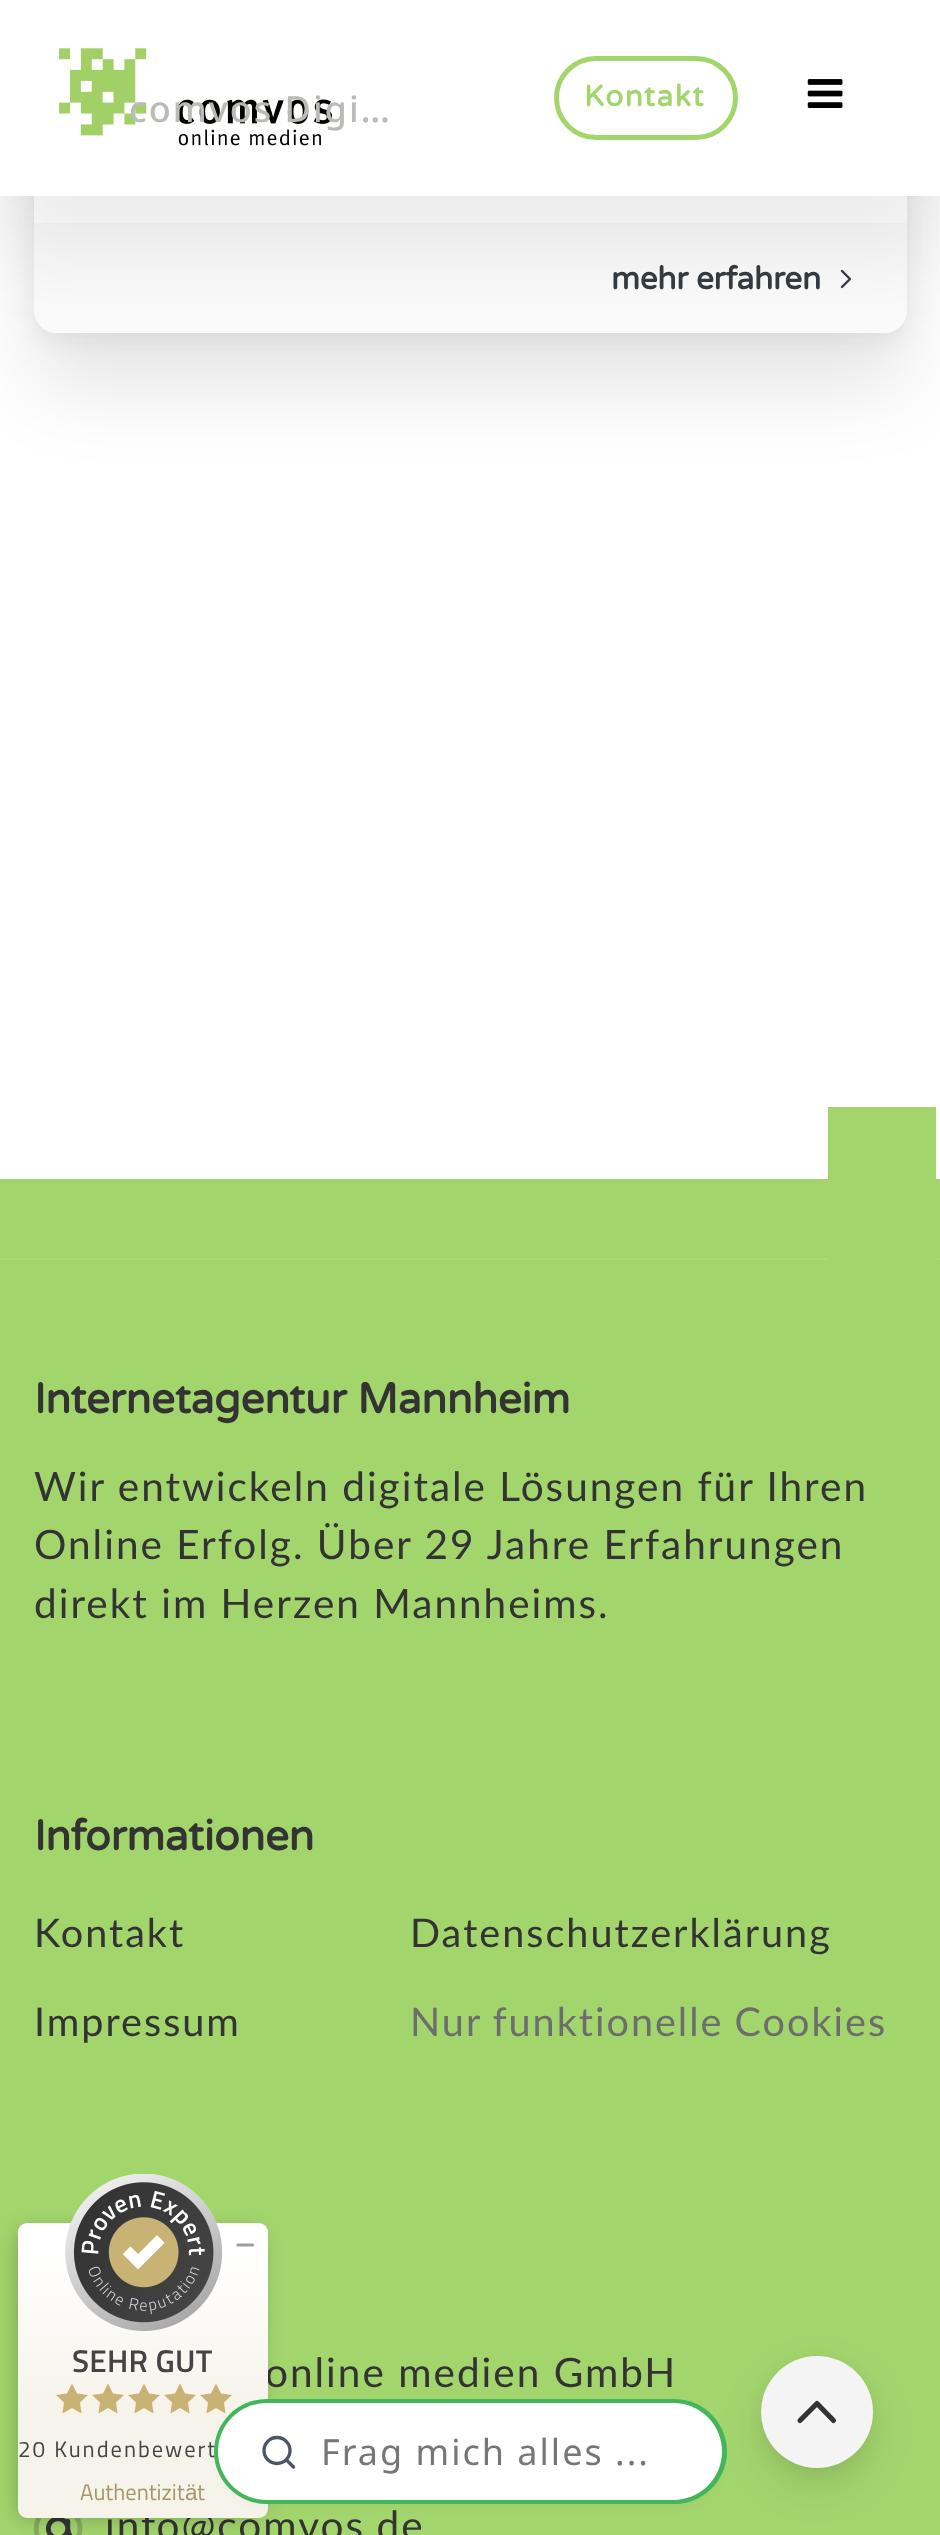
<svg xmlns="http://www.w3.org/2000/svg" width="940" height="2535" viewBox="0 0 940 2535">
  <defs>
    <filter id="blur1" x="-50%" y="-200%" width="200%" height="500%"><feGaussianBlur stdDeviation="39.5"/></filter>
    <filter id="blur2" x="-50%" y="-200%" width="200%" height="500%"><feGaussianBlur stdDeviation="9"/></filter>
    <filter id="blur3" x="-50%" y="-200%" width="200%" height="500%"><feGaussianBlur stdDeviation="11"/></filter>
    <linearGradient id="g1" gradientUnits="userSpaceOnUse" x1="143" y1="2518" x2="143" y2="2223"><stop offset="0.37" stop-color="#f6f3ea"/><stop offset="0.9" stop-color="#ffffff"/></linearGradient>
    <filter id="blur4" x="-50%" y="-200%" width="200%" height="500%"><feGaussianBlur stdDeviation="7"/></filter>
    <filter id="blur5" x="-50%" y="-200%" width="200%" height="500%"><feGaussianBlur stdDeviation="21.5"/></filter>
  </defs>
  <rect width="100%" height="100%" fill="#ffffff"/>
  <rect x="34" y="-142" width="873" height="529" rx="23" fill="#000000" fill-opacity="0.1" filter="url(#blur1)"/>
  <rect x="34" y="-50" width="873" height="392" rx="23" fill="#000000" fill-opacity="0.05" filter="url(#blur2)"/>
  <path d="M34-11H907V310C907 322.5 896.5 333 884 333H57C44.5 333 34 322.5 34 310Z" fill="#ffffff"/>
  <path d="M34 223H907V310C907 322.5 896.5 333 884 333H57C44.5 333 34 322.5 34 310Z" fill="#fafafa"/>
  <path d="M842 287L850 279L842 271" fill="none" stroke="#343a40" stroke-width="2.4" stroke-linecap="round" stroke-linejoin="round"/>
  <rect x="0" y="54" width="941" height="196" fill="#000000" fill-opacity="0.08" filter="url(#blur1)"/>
  <rect x="0" y="0" width="940" height="196" fill="#ffffff"/>
  <image x="59" y="48" width="273" height="98" href="img1.png"/>
  <rect x="556.5" y="58.5" width="179" height="79" rx="39.5" fill="none" stroke="#a3d56d" stroke-width="5"/>
  <text x="584" y="106" font-family="Varela Round" font-size="29.5" font-weight="bold" letter-spacing="1.5" fill="#a3d56d">Kontakt</text>
  <image x="807" y="79" width="36" height="29" href="img2.png"/>
  <text x="611" y="289" font-family="Varela Round" font-size="31.5" font-weight="bold" letter-spacing="-0.25" fill="#343a40">mehr erfahren</text>
  <rect x="0" y="1179" width="940" height="1356" fill="#a3d56d"/>
  <rect x="0" y="1258" width="940" height="2" fill="#aad879"/>
  <text x="34" y="1413" font-family="Varela Round" font-size="42.25" font-weight="bold" letter-spacing="-0.25" fill="#333333">Internetagentur Mannheim</text>
  <text x="34" y="1501" font-family="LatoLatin" font-size="40.5" letter-spacing="2" fill="#333333">Wir entwickeln digitale Lösungen für Ihren</text>
  <text x="34" y="1559" font-family="LatoLatin" font-size="40.5" letter-spacing="2" fill="#333333">Online Erfolg. Über 29 Jahre Erfahrungen</text>
  <text x="34" y="1618" font-family="LatoLatin" font-size="40.5" letter-spacing="2" fill="#333333">direkt im Herzen Mannheims.</text>
  <text x="34" y="1850" font-family="Varela Round" font-size="42.25" font-weight="bold" letter-spacing="-0.25" fill="#333333">Informationen</text>
  <text x="34" y="1947" font-family="LatoLatin" font-size="39.6" letter-spacing="2" fill="#333333">Kontakt</text>
  <text x="34" y="2036" font-family="LatoLatin" font-size="39.6" letter-spacing="2" fill="#333333">Impressum</text>
  <text x="410" y="1947" font-family="LatoLatin" font-size="39.6" letter-spacing="2" fill="#333333">Datenschutzerklärung</text>
  <text x="410" y="2036" word-spacing="-1" font-family="LatoLatin" font-size="39.6" letter-spacing="2" fill="#6d6d6d">Nur funktionelle Cookies</text>
  <text x="265" y="2387" font-family="LatoLatin" font-size="40.5" letter-spacing="2" fill="#333333">online medien GmbH</text>
  <image x="33" y="2518" width="50" height="17" href="img3.png"/>
  <text x="105" y="2540" font-family="LatoLatin" font-size="40.5" letter-spacing="2" fill="#333333">info@comvos.de</text>
  <text x="129" y="122" font-family="Noto Sans" font-size="36" font-weight="500" letter-spacing="2" fill="#b9bbb7">comvos Digi…</text>
  <rect x="18" y="2232" width="241" height="286" rx="5" fill="#000000" fill-opacity="0.25" filter="url(#blur3)"/>
  <rect x="18" y="2223" width="250" height="295" rx="9" fill="url(#g1)"/>
  <path d="M216 2383.5L221 2393.5L232 2395L224 2402.5L225.5 2413.5L216 2408L206.5 2413.5L208 2402.5L200 2395L211 2393.5Z" fill="#c8b274"/>
  <rect x="223" y="2417" width="495" height="87" rx="43.5" fill="#000000" fill-opacity="0.05" filter="url(#blur4)"/>
  <text x="18" y="2457" font-family="Titillium Web" font-size="22.5" letter-spacing="2" fill="#444444">20 Kundenbewert</text>
  <rect x="761" y="2374" width="112" height="112" rx="56" fill="#000000" fill-opacity="0.1" filter="url(#blur5)"/>
  <rect x="214" y="2399" width="513" height="105" rx="52.5" fill="#43b65c"/>
  <rect x="218" y="2403" width="504" height="97" rx="48.5" fill="#ffffff"/>
  <circle cx="277" cy="2450.5" r="13" fill="none" stroke="#4b5563" stroke-width="3.3"/>
  <path d="M293.5 2467L286.5 2460" fill="none" stroke="#4b5563" stroke-width="3.3" stroke-linecap="round" stroke-linejoin="round"/>
  <text x="321" y="2465" font-family="Noto Sans" font-size="36" letter-spacing="2" fill="#767676">Frag mich alles ...</text>
  <rect x="828" y="1107" width="108" height="72" fill="#a3d56d"/>
  <rect x="828" y="1258" width="108" height="2" fill="#a3d56d"/>
  <image x="65" y="2174" width="158" height="157" href="img4.png"/>
  <image x="235" y="2243" width="20" height="4" href="img5.png"/>
  <text x="72" y="2372" font-family="Titillium Web" font-size="31.5" font-weight="600" letter-spacing="0.25" fill="#444444">SEHR GUT</text>
  <path d="M72 2383.5L77 2393.5L88 2395L80 2402.5L81.5 2413.5L72 2408L62.5 2413.5L64 2402.5L56 2395L67 2393.5Z" fill="#c8b274"/>
  <path d="M108 2383.5L113 2393.5L124 2395L116 2402.5L117.5 2413.5L108 2408L98.5 2413.5L100 2402.5L92 2395L103 2393.5Z" fill="#c8b274"/>
  <path d="M144 2383.5L149 2393.5L160 2395L152 2402.5L153.5 2413.5L144 2408L134.5 2413.5L136 2402.5L128 2395L139 2393.5Z" fill="#c8b274"/>
  <path d="M180 2383.5L185 2393.5L196 2395L188 2402.5L189.5 2413.5L180 2408L170.5 2413.5L172 2402.5L164 2395L175 2393.5Z" fill="#c8b274"/>
  <text x="80" y="2500" font-family="Titillium Web" font-size="22.5" fill="#a79563">Authentizit</text>
  <text x="185" y="2500" font-family="Liberation Sans" font-size="22.5" fill="#a79563">ä</text>
  <text x="197" y="2500" font-family="Titillium Web" font-size="22.5" fill="#a79563">t</text>
  <rect x="761" y="2360" width="112" height="113" rx="56" fill="#000000" fill-opacity="0.05" filter="url(#blur4)"/>
  <circle cx="817" cy="2412" r="56" fill="#f4f4f5"/>
  <path d="M800 2420.5L817 2403.5L833.5 2420.5" fill="none" stroke="#333333" stroke-width="5.1" stroke-linecap="round" stroke-linejoin="round"/>
</svg>
